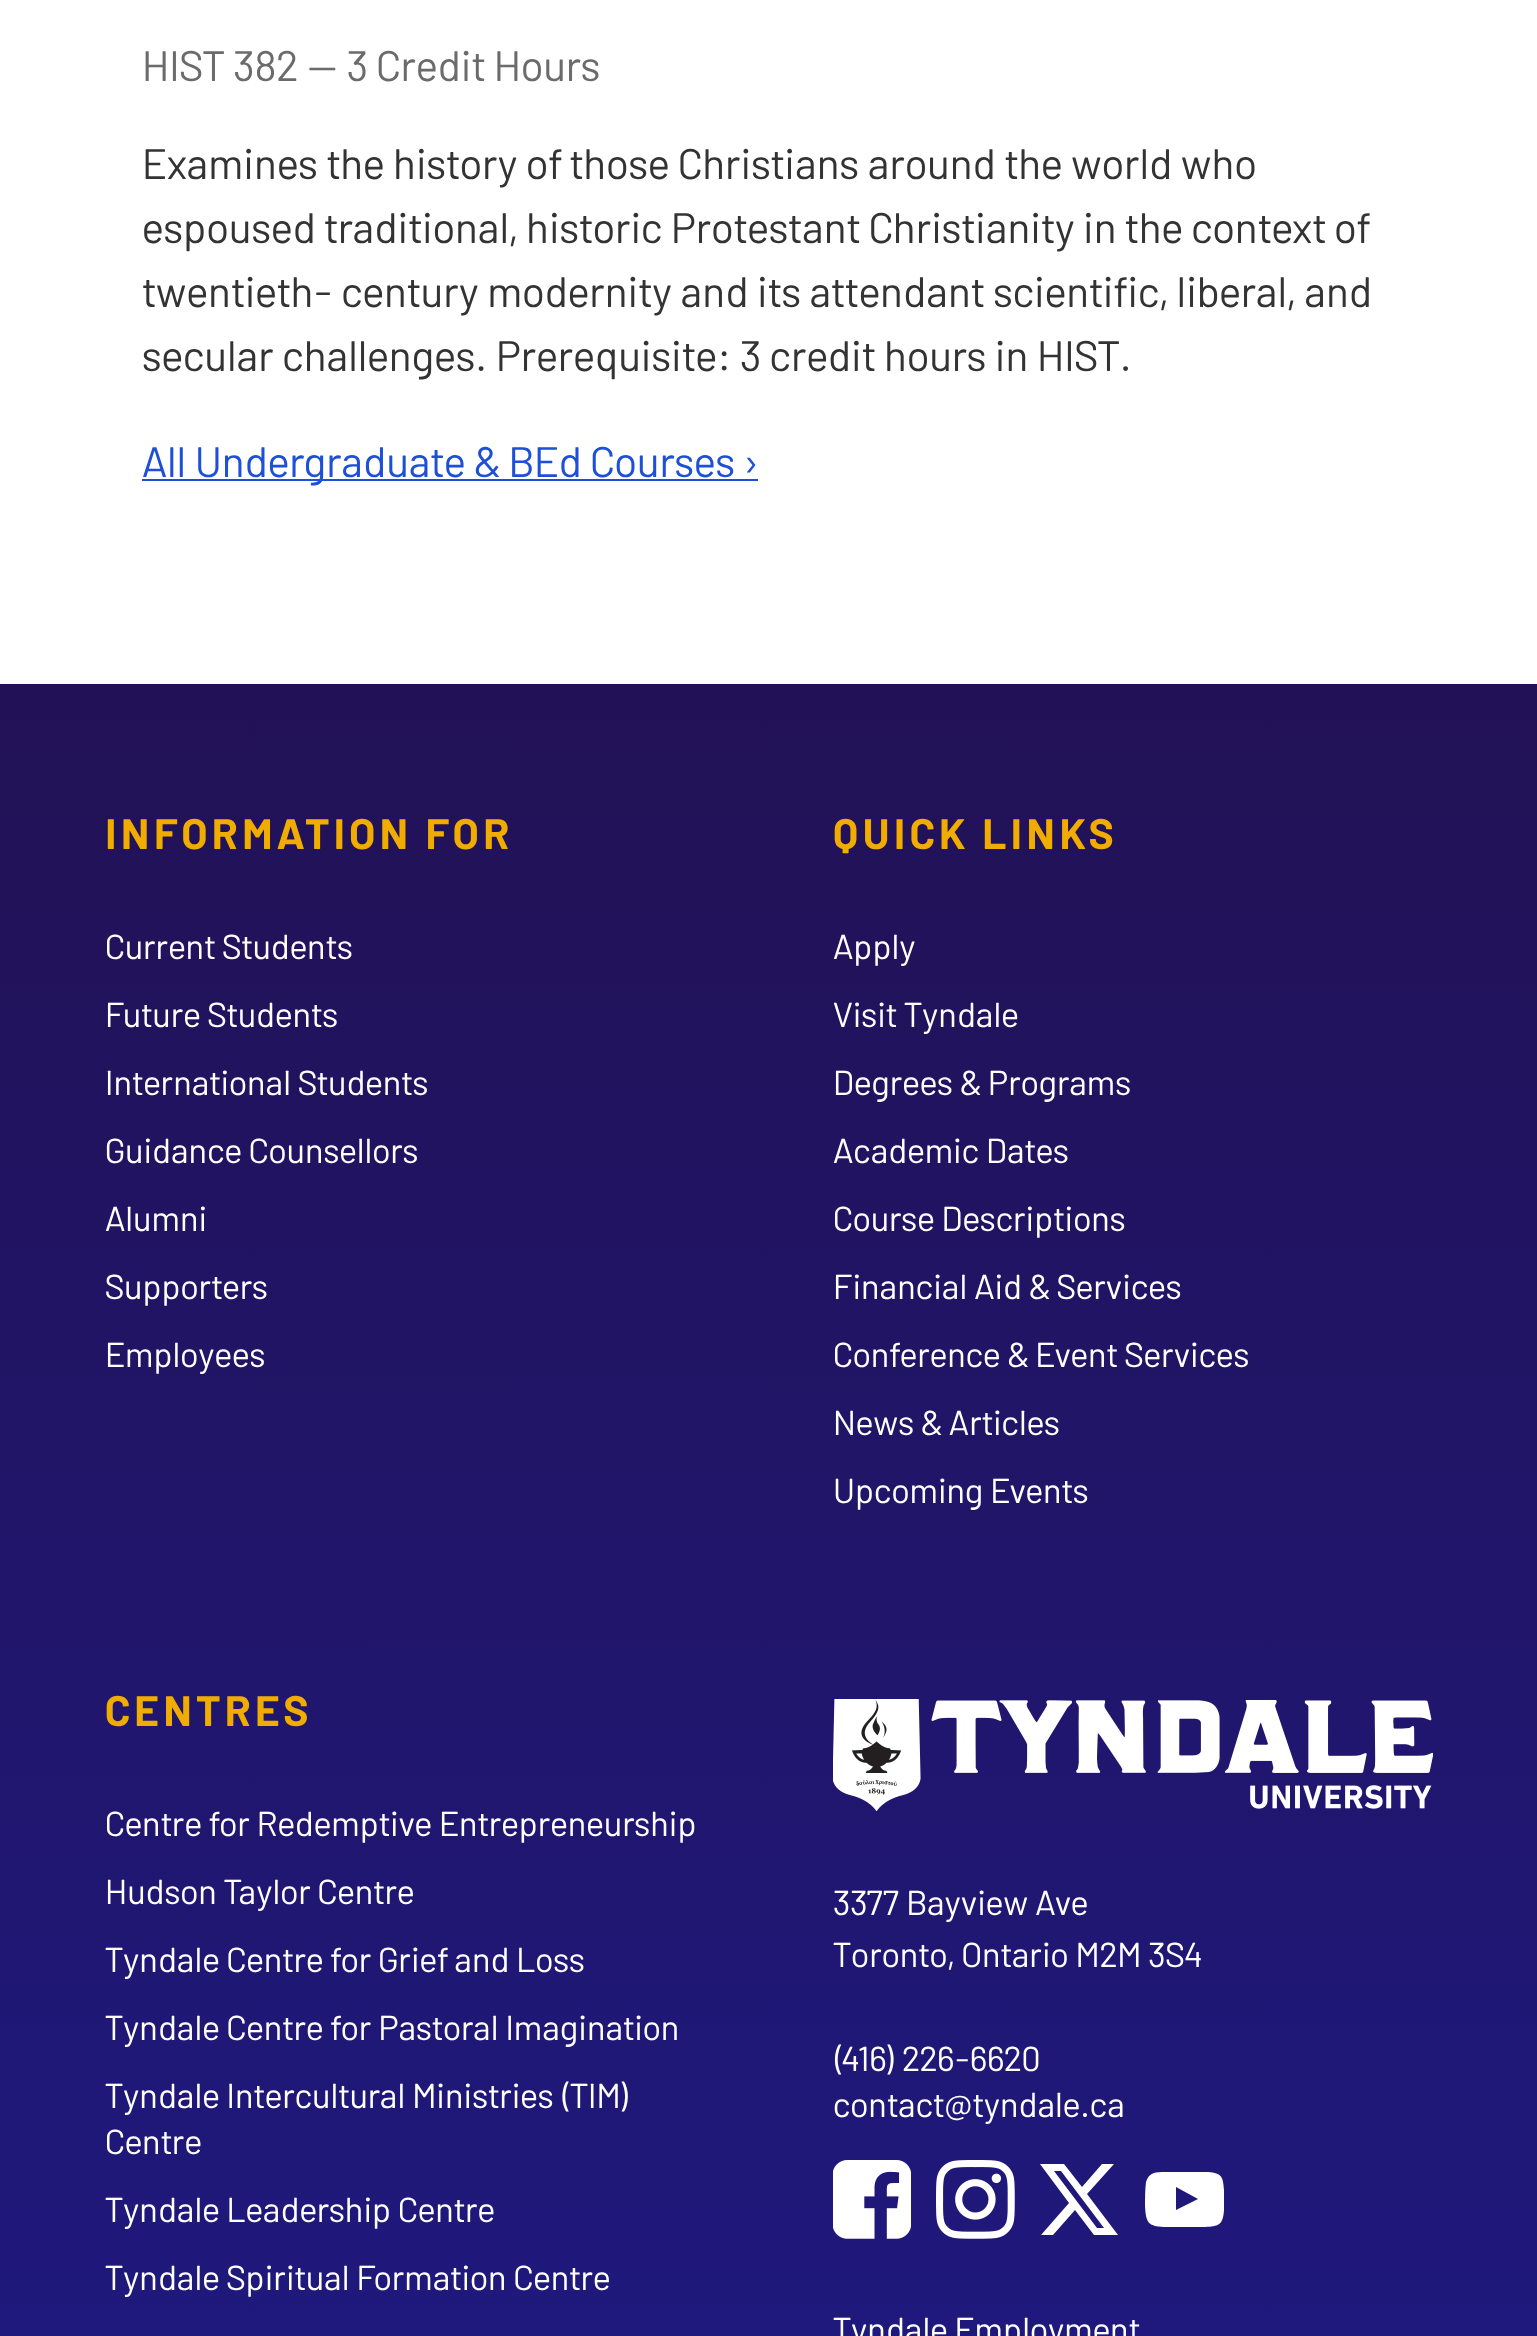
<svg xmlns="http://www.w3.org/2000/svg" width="1537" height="2336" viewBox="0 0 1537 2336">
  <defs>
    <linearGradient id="g1" gradientUnits="userSpaceOnUse" x1="769" y1="684" x2="770" y2="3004"><stop offset="0" stop-color="#221155"/><stop offset="1" stop-color="#1e1c8d"/></linearGradient>
  </defs>
  <rect width="100%" height="100%" fill="#ffffff"/>
  <text x="142" y="81" font-family="Barlow" font-size="42.6" fill="#6b6b6b">HIST 382 — 3 Credit Hours</text>
  <text x="142" y="179" font-family="Barlow" font-size="42.6" fill="#333333">Examines the history of those Christians around the world who</text>
  <text x="142" y="243" word-spacing="-0.25" font-family="Barlow" font-size="42.6" fill="#333333">espoused traditional, historic Protestant Christianity in the context of</text>
  <text x="142" y="307" font-family="Barlow" font-size="42.6" fill="#333333">twentieth- century modernity and its attendant scientific, liberal, and</text>
  <text x="142" y="371" font-family="Barlow" font-size="42.6" fill="#333333">secular challenges. Prerequisite: 3 credit hours in HIST.</text>
  <rect x="142" y="479" width="616" height="2" fill="#1d4fd7"/>
  <text x="142" y="477" font-family="Barlow" font-size="42.6" fill="#1d4fd7">All Undergraduate &amp; BEd Courses ›</text>
  <rect x="0" y="684" width="1537" height="1652" fill="url(#g1)"/>
  <text x="105" y="849" font-family="Barlow" font-size="42.6" font-weight="bold" letter-spacing="4.25" fill="#f0ac00">INFORMATION FOR</text>
  <text x="105" y="959" font-family="Barlow" font-size="34.6" fill="#ffffff">Current Students</text>
  <text x="105" y="1027" font-family="Barlow" font-size="34.6" fill="#ffffff">Future Students</text>
  <text x="105" y="1095" font-family="Barlow" font-size="34.6" fill="#ffffff">International Students</text>
  <text x="105" y="1163" font-family="Barlow" font-size="34.6" fill="#ffffff">Guidance Counsellors</text>
  <text x="105" y="1231" font-family="Barlow" font-size="34.6" fill="#ffffff">Alumni</text>
  <text x="105" y="1299" font-family="Barlow" font-size="34.6" fill="#ffffff">Supporters</text>
  <text x="105" y="1367" font-family="Barlow" font-size="34.6" fill="#ffffff">Employees</text>
  <text x="833" y="849" font-family="Barlow" font-size="42.6" font-weight="bold" letter-spacing="4.25" fill="#f0ac00">QUICK LINKS</text>
  <text x="833" y="959" font-family="Barlow" font-size="34.6" fill="#ffffff">Apply</text>
  <text x="833" y="1027" font-family="Barlow" font-size="34.6" fill="#ffffff">Visit Tyndale</text>
  <text x="833" y="1095" font-family="Barlow" font-size="34.6" fill="#ffffff">Degrees &amp; Programs</text>
  <text x="833" y="1163" font-family="Barlow" font-size="34.6" fill="#ffffff">Academic Dates</text>
  <text x="833" y="1231" font-family="Barlow" font-size="34.6" fill="#ffffff">Course Descriptions</text>
  <text x="833" y="1299" font-family="Barlow" font-size="34.6" fill="#ffffff">Financial Aid &amp; Services</text>
  <text x="833" y="1367" font-family="Barlow" font-size="34.6" fill="#ffffff">Conference &amp; Event Services</text>
  <text x="833" y="1435" font-family="Barlow" font-size="34.6" fill="#ffffff">News &amp; Articles</text>
  <text x="833" y="1503" font-family="Barlow" font-size="34.6" fill="#ffffff">Upcoming Events</text>
  <text x="105" y="1726" font-family="Barlow" font-size="42.6" font-weight="bold" letter-spacing="4.25" fill="#f0ac00">CENTRES</text>
  <text x="105" y="1836" font-family="Barlow" font-size="34.6" fill="#ffffff">Centre for Redemptive Entrepreneurship</text>
  <text x="105" y="1904" font-family="Barlow" font-size="34.6" fill="#ffffff">Hudson Taylor Centre</text>
  <text x="105" y="1972" font-family="Barlow" font-size="34.6" fill="#ffffff">Tyndale Centre for Grief and Loss</text>
  <text x="105" y="2040" font-family="Barlow" font-size="34.6" fill="#ffffff">Tyndale Centre for Pastoral Imagination</text>
  <text x="105" y="2108" font-family="Barlow" font-size="34.6" fill="#ffffff">Tyndale Intercultural Ministries (TIM)</text>
  <text x="105" y="2154" font-family="Barlow" font-size="34.6" fill="#ffffff">Centre</text>
  <text x="105" y="2222" font-family="Barlow" font-size="34.6" fill="#ffffff">Tyndale Leadership Centre</text>
  <text x="105" y="2290" font-family="Barlow" font-size="34.6" fill="#ffffff">Tyndale Spiritual Formation Centre</text>
  <image x="833" y="1699" width="600" height="112" href="img1.png"/>
  <text x="833" y="1915" font-family="Barlow" font-size="34.6" fill="#ffffff">3377 Bayview Ave</text>
  <text x="833" y="1967" font-family="Barlow" font-size="34.6" fill="#ffffff">Toronto, Ontario M2M 3S4</text>
  <text x="833" y="2071" font-family="Barlow" font-size="34.6" fill="#ffffff">(416) 226-6620</text>
  <text x="833" y="2117" font-family="Barlow" font-size="34.6" fill="#ffffff">contact@tyndale.ca</text>
  <image x="833" y="2160" width="78" height="79" href="img2.png"/>
  <image x="936" y="2160" width="79" height="79" href="img3.png"/>
  <path d="M1102 2164H1114L1087 2194L1118 2235H1094L1075 2210L1053 2235H1041L1069 2203L1040 2164H1064L1082 2187ZM1097 2228H1104L1061 2171H1054Z" fill="#ffffff"/>
  <path d="M1185 2172H1208C1222 2173 1223 2177 1224 2190V2210C1223 2226 1218 2226 1205 2227H1185H1164C1148 2226 1146 2223 1145 2206C1145 2198 1145 2190 1146 2182C1149 2172 1156 2172 1165 2172ZM1176 2187V2210L1198 2199Z" fill="#ffffff"/>
  <text x="833" y="2342" font-family="Barlow" font-size="34.6" fill="#ffffff">Tyndale Employment</text>
</svg>
